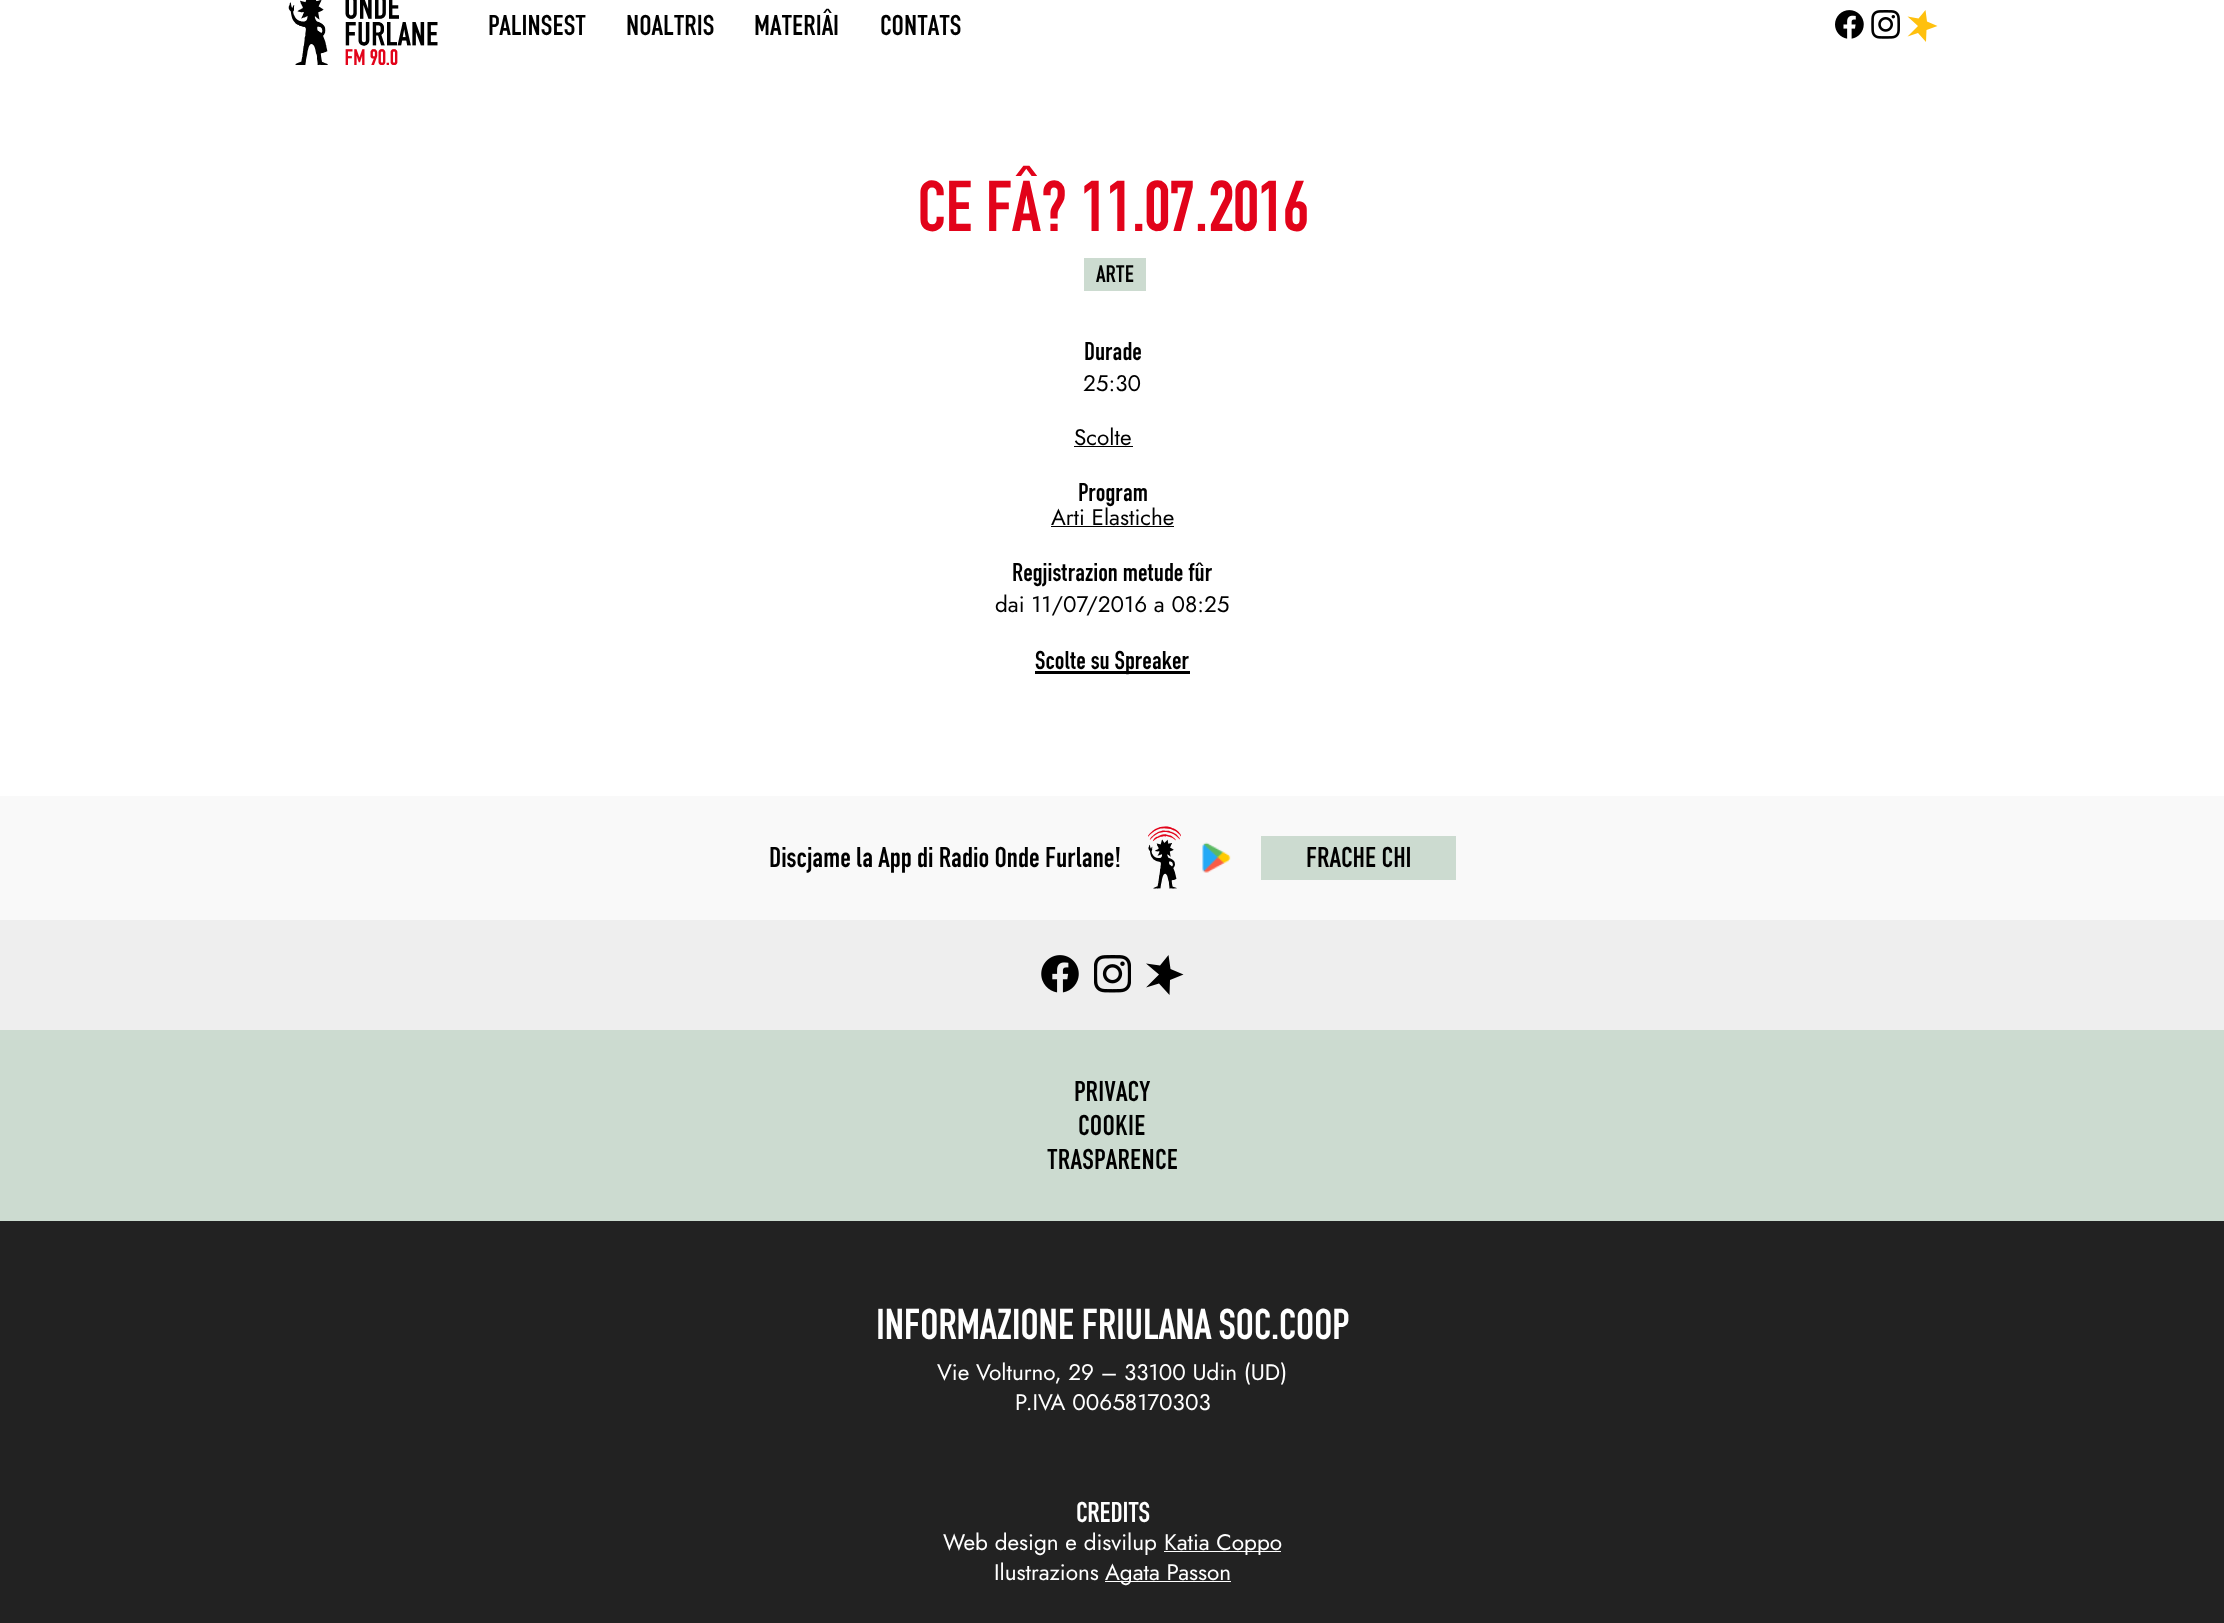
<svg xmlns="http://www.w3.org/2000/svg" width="2224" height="1623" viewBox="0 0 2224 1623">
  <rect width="100%" height="100%" fill="#ffffff"/>
  <image x="288" y="0" width="150" height="65" href="img1.png"/>
  <text x="488" y="35" font-family="'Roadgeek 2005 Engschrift'" font-size="30" fill="#000000">PALINSEST</text>
  <text x="626" y="35" font-family="'Roadgeek 2005 Engschrift'" font-size="30" fill="#000000">NOALTRIS</text>
  <text x="754" y="35" font-family="'Roadgeek 2005 Engschrift'" font-size="30" fill="#000000">MATERIÂI</text>
  <text x="880" y="35" font-family="'Roadgeek 2005 Engschrift'" font-size="30" fill="#000000">CONTATS</text>
  <image x="1835" y="10" width="29" height="29" href="img2.png"/>
  <image x="1871" y="10" width="29" height="29" href="img3.png"/>
  <path d="M1918 26L1907.5 36.5L1918 33L1926 42L1926.5 30L1937.5 26L1927 21.5L1925.5 10L1918.5 18.5L1907.5 16.5Z" fill="#ffc00e"/>
  <text x="917" y="231" font-family="'Roadgeek 2005 Engschrift'" font-size="75" letter-spacing="-0.75" fill="#e2031a">CE FÂ? 11.07.2016</text>
  <rect x="1084" y="258" width="62" height="33" fill="#ccdbd0"/>
  <text x="1096" y="282" font-family="'Roadgeek 2005 Engschrift'" font-size="25" fill="#000000">ARTE</text>
  <text x="1084" y="360" font-family="'Roadgeek 2005 Engschrift'" font-size="27" fill="#000000">Durade</text>
  <text x="1083" y="391" font-family="Jost" font-size="22.5" fill="#000000">25:30</text>
  <text x="1074" y="445" font-family="Jost" font-size="22.5" fill="#000000">Scolte</text>
  <rect x="1074" y="446" width="59" height="1" fill="#000000"/>
  <text x="1078" y="501" font-family="'Roadgeek 2005 Engschrift'" font-size="27" fill="#000000">Program</text>
  <text x="1051" y="525" font-family="Jost" font-size="22.5" fill="#000000">Arti Elastiche</text>
  <rect x="1051" y="526" width="123" height="1" fill="#000000"/>
  <text x="1012" y="581" font-family="'Roadgeek 2005 Engschrift'" font-size="27" fill="#000000">Regjistrazion metude fûr</text>
  <text x="995" y="612" font-family="Jost" font-size="22.5" fill="#000000">dai 11/07/2016 a 08:25</text>
  <rect x="1035" y="671" width="155" height="3" fill="#000000"/>
  <text x="1035" y="669" font-family="'Roadgeek 2005 Engschrift'" font-size="27" fill="#000000">Scolte su Spreaker</text>
  <rect x="0" y="796" width="2224" height="124" fill="#f9f9f9"/>
  <text x="769" y="867" font-family="'Roadgeek 2005 Engschrift'" font-size="30" fill="#000000">Discjame la App di Radio Onde Furlane!</text>
  <image x="1148" y="826" width="33" height="63" href="img4.png"/>
  <image x="1202" y="842" width="29" height="31" href="img5.png"/>
  <rect x="1261" y="836" width="195" height="44" fill="#ccdbd0"/>
  <text x="1306" y="867" font-family="'Roadgeek 2005 Engschrift'" font-size="30" fill="#000000">FRACHE CHI</text>
  <rect x="0" y="920" width="2224" height="110" fill="#eeeeee"/>
  <image x="1041" y="955" width="38" height="38" href="img6.png"/>
  <image x="1094" y="955" width="37" height="38" href="img7.png"/>
  <path d="M1159 974.5L1146 987.5L1159 983.5L1169.5 995L1170 980L1183.5 974.5L1170.5 969L1168.5 955L1160 965.5L1146 963.5Z" fill="#000000"/>
  <rect x="0" y="1030" width="2224" height="191" fill="#ccdbd0"/>
  <text x="1074" y="1101" font-family="'Roadgeek 2005 Engschrift'" font-size="30" letter-spacing="0.25" fill="#000000">PRIVACY</text>
  <text x="1078" y="1135" font-family="'Roadgeek 2005 Engschrift'" font-size="30" letter-spacing="0.25" fill="#000000">COOKIE</text>
  <text x="1047" y="1169" font-family="'Roadgeek 2005 Engschrift'" font-size="30" letter-spacing="0.25" fill="#000000">TRASPARENCE</text>
  <rect x="0" y="1221" width="2224" height="402" fill="#222222"/>
  <text x="876" y="1339" font-family="'Roadgeek 2005 Engschrift'" font-size="45" letter-spacing="-0.45" fill="#ffffff">INFORMAZIONE FRIULANA SOC.COOP</text>
  <text x="937" y="1380" font-family="Jost" font-size="22.5" fill="#ffffff">Vie Volturno, 29 – 33100 Udin (UD)</text>
  <text x="1015" y="1410" font-family="Jost" font-size="22.5" fill="#ffffff">P.IVA 00658170303</text>
  <text x="1076" y="1522" font-family="'Roadgeek 2005 Engschrift'" font-size="30" letter-spacing="-0.25" fill="#ffffff">CREDITS</text>
  <text x="943" y="1550" font-family="Jost" font-size="22.5" fill="#ffffff">Web design e disvilup</text>
  <rect x="1164" y="1551" width="117" height="1" fill="#ffffff"/>
  <text x="1164" y="1550" font-family="Jost" font-size="22.5" fill="#ffffff">Katia Coppo</text>
  <text x="994" y="1580" font-family="Jost" font-size="22.5" fill="#ffffff">Ilustrazions</text>
  <rect x="1105" y="1581" width="126" height="1" fill="#ffffff"/>
  <text x="1105" y="1580" font-family="Jost" font-size="22.5" fill="#ffffff">Agata Passon</text>
</svg>
